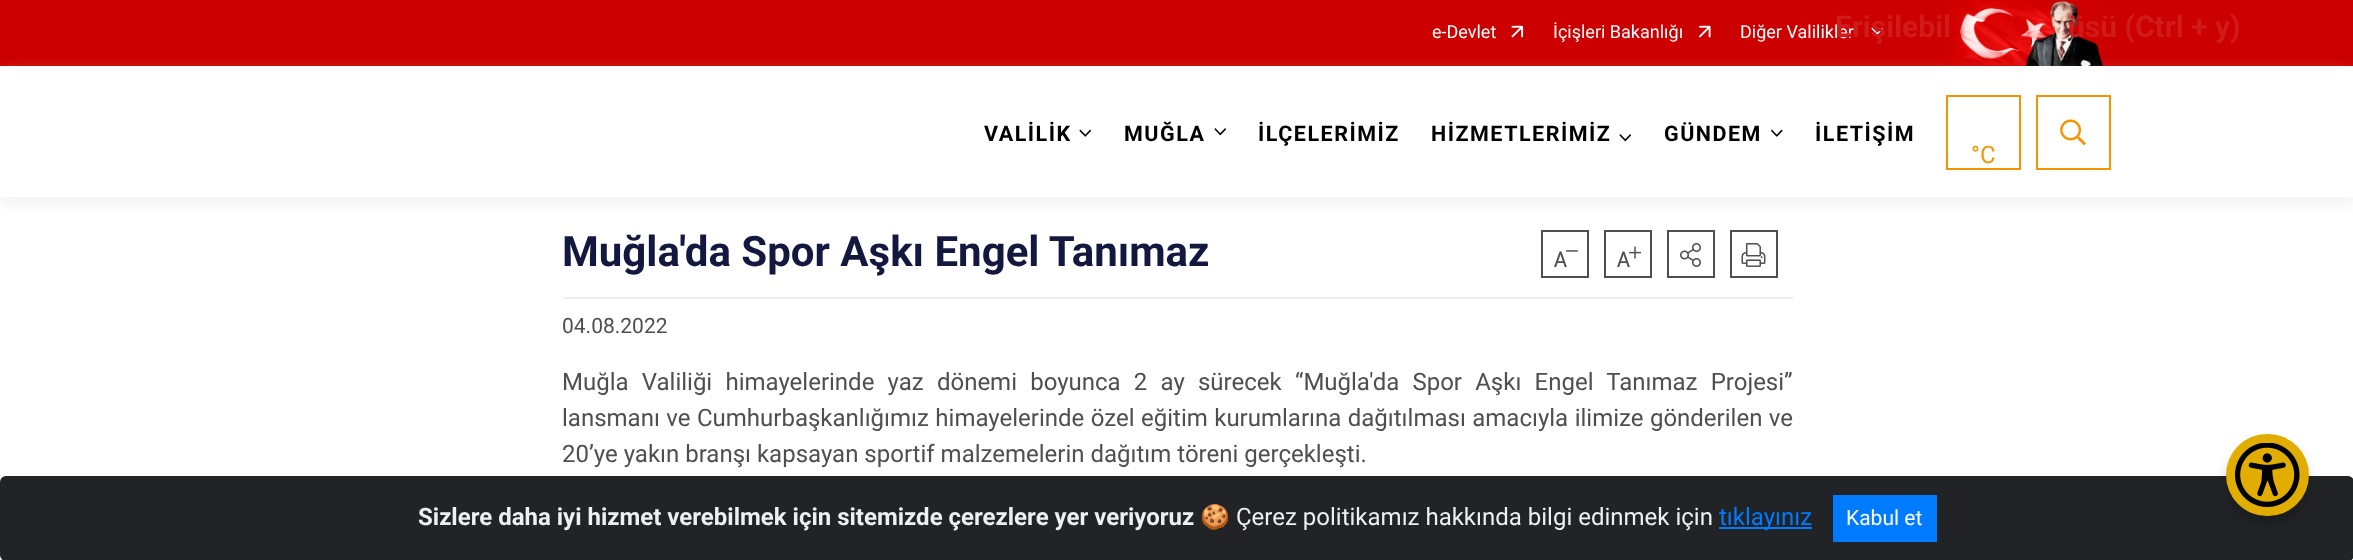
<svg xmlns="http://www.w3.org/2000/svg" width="2353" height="560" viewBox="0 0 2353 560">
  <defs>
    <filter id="blur1" x="-50%" y="-200%" width="200%" height="500%"><feGaussianBlur stdDeviation="7.5"/></filter>
    <filter id="blur2" x="-50%" y="-200%" width="200%" height="500%"><feGaussianBlur stdDeviation="6"/></filter>
  </defs>
  <rect width="100%" height="100%" fill="#ffffff"/>
  <rect x="0" y="0" width="2353" height="66" fill="#cc0000"/>
  <text x="1432" y="38" font-family="Roboto" font-size="18" fill="#ffffff">e-Devlet</text>
  <image x="1511" y="25" width="13" height="13" href="img1.png"/>
  <text x="1553" y="38" font-family="Roboto" font-size="18" fill="#ffffff">İçişleri Bakanlığı</text>
  <image x="1699" y="25" width="12" height="13" href="img2.png"/>
  <text x="1740" y="38" font-family="Roboto" font-size="18" fill="#ffffff">Diğer Valilikler</text>
  <image x="1871" y="27" width="12" height="8" href="img3.png"/>
  <image x="1946" y="0" width="158" height="66" href="img4.png"/>
  <rect x="0" y="75" width="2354" height="131" fill="#eeeeee" fill-opacity="0.62" filter="url(#blur1)"/>
  <rect x="0" y="70" width="2353" height="127" fill="#ffffff"/>
  <text x="984" y="141" font-family="Roboto" font-size="21.5" font-weight="bold" letter-spacing="1.5" fill="#000000">VALİLİK</text>
  <image x="1079" y="129" width="12" height="8" href="img5.png"/>
  <text x="1124" y="141" font-family="Roboto" font-size="21.5" font-weight="bold" letter-spacing="1.5" fill="#000000">MUĞLA</text>
  <image x="1214" y="128" width="12" height="8" href="img6.png"/>
  <text x="1258" y="141" font-family="Roboto" font-size="21.5" font-weight="bold" letter-spacing="1.5" fill="#000000">İLÇELERİMİZ</text>
  <text x="1431" y="141" font-family="Roboto" font-size="21.5" font-weight="bold" letter-spacing="1.5" fill="#000000">HİZMETLERİMİZ</text>
  <image x="1619" y="134" width="12" height="8" href="img6.png"/>
  <text x="1664" y="141" font-family="Roboto" font-size="21.5" font-weight="bold" letter-spacing="1.5" fill="#000000">GÜNDEM</text>
  <image x="1771" y="129" width="12" height="8" href="img7.png"/>
  <text x="1815" y="141" font-family="Roboto" font-size="21.5" font-weight="bold" letter-spacing="1.5" fill="#000000">İLETİŞİM</text>
  <rect x="1947" y="96" width="73" height="73" fill="none" stroke="#f59300" stroke-width="2"/>
  <text x="1971" y="163" font-family="Roboto" font-size="24" fill="#f59300">°C</text>
  <rect x="2037" y="96" width="73" height="73" fill="none" stroke="#f59300" stroke-width="2"/>
  <image x="2060" y="119" width="26" height="27" href="img8.png"/>
  <rect x="563" y="297" width="1230" height="2" fill="#eeeeee"/>
  <text x="562" y="266" font-family="Roboto" font-size="42" font-weight="bold" fill="#13183e">Muğla'da Spor Aşkı Engel Tanımaz</text>
  <rect x="1542" y="231" width="46" height="46" fill="none" stroke="#4f4f4f" stroke-width="2"/>
  <image x="1554" y="250" width="24" height="17" href="img9.png"/>
  <rect x="1605" y="231" width="46" height="46" fill="none" stroke="#4f4f4f" stroke-width="2"/>
  <image x="1617" y="246" width="24" height="21" href="img10.png"/>
  <rect x="1668" y="231" width="46" height="46" fill="none" stroke="#4f4f4f" stroke-width="2"/>
  <image x="1680" y="243" width="21" height="24" href="img11.png"/>
  <rect x="1731" y="231" width="46" height="46" fill="none" stroke="#4f4f4f" stroke-width="2"/>
  <image x="1741" y="243" width="25" height="24" href="img12.png"/>
  <text x="562" y="333" font-family="Roboto" font-size="21" fill="#4f4f4f">04.08.2022</text>
  <text x="562" y="390" word-spacing="7.25" font-family="Roboto" font-size="24" fill="#4f4f4f">Muğla Valiliği himayelerinde yaz dönemi boyunca 2 ay sürecek “Muğla'da Spor Aşkı Engel Tanımaz Projesi”</text>
  <text x="562" y="426" word-spacing="0.5" font-family="Roboto" font-size="24" fill="#4f4f4f">lansmanı ve Cumhurbaşkanlığımız himayelerinde özel eğitim kurumlarına dağıtılması amacıyla ilimize gönderilen ve</text>
  <text x="562" y="462" font-family="Roboto" font-size="24" fill="#4f4f4f">20’ye yakın branşı kapsayan sportif malzemelerin dağıtım töreni gerçekleşti.</text>
  <text x="1835" y="37" font-family="Roboto" font-size="30" font-weight="bold" fill="#d11a1a">Erişilebil</text>
  <text x="2068" y="37" font-family="Roboto" font-size="30" font-weight="bold" fill="#d11a1a">üsü (Ctrl + y)</text>
  <rect x="0" y="476" width="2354" height="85" rx="6" fill="#212327"/>
  <rect x="2226" y="443" width="83" height="82" rx="41" fill="#000000" fill-opacity="0.2" filter="url(#blur2)"/>
  <rect x="2226" y="434" width="83" height="82" rx="41" fill="#e1ad01"/>
  <image x="2235" y="443" width="65" height="64" href="img13.png"/>
  <text x="418" y="525" font-family="Roboto" font-size="24" font-weight="bold" fill="#ecf0f1">Sizlere daha iyi hizmet verebilmek için sitemizde çerezlere yer veriyoruz</text>
  <text x="1200" y="525" font-family="Noto Color Emoji" font-size="24" fill="#ecf0f1">🍪</text>
  <text x="1236" y="525" font-family="Roboto" font-size="24" fill="#ecf0f1">Çerez politikamız hakkında bilgi edinmek için</text>
  <rect x="1719" y="527" width="93" height="2" fill="#007bff"/>
  <text x="1719" y="525" font-family="Roboto" font-size="24" fill="#007bff">tıklayınız</text>
  <rect x="1833" y="495" width="104" height="47" fill="#007bff"/>
  <text x="1846" y="525" font-family="Roboto" font-size="21" fill="#ffffff">Kabul et</text>
</svg>
